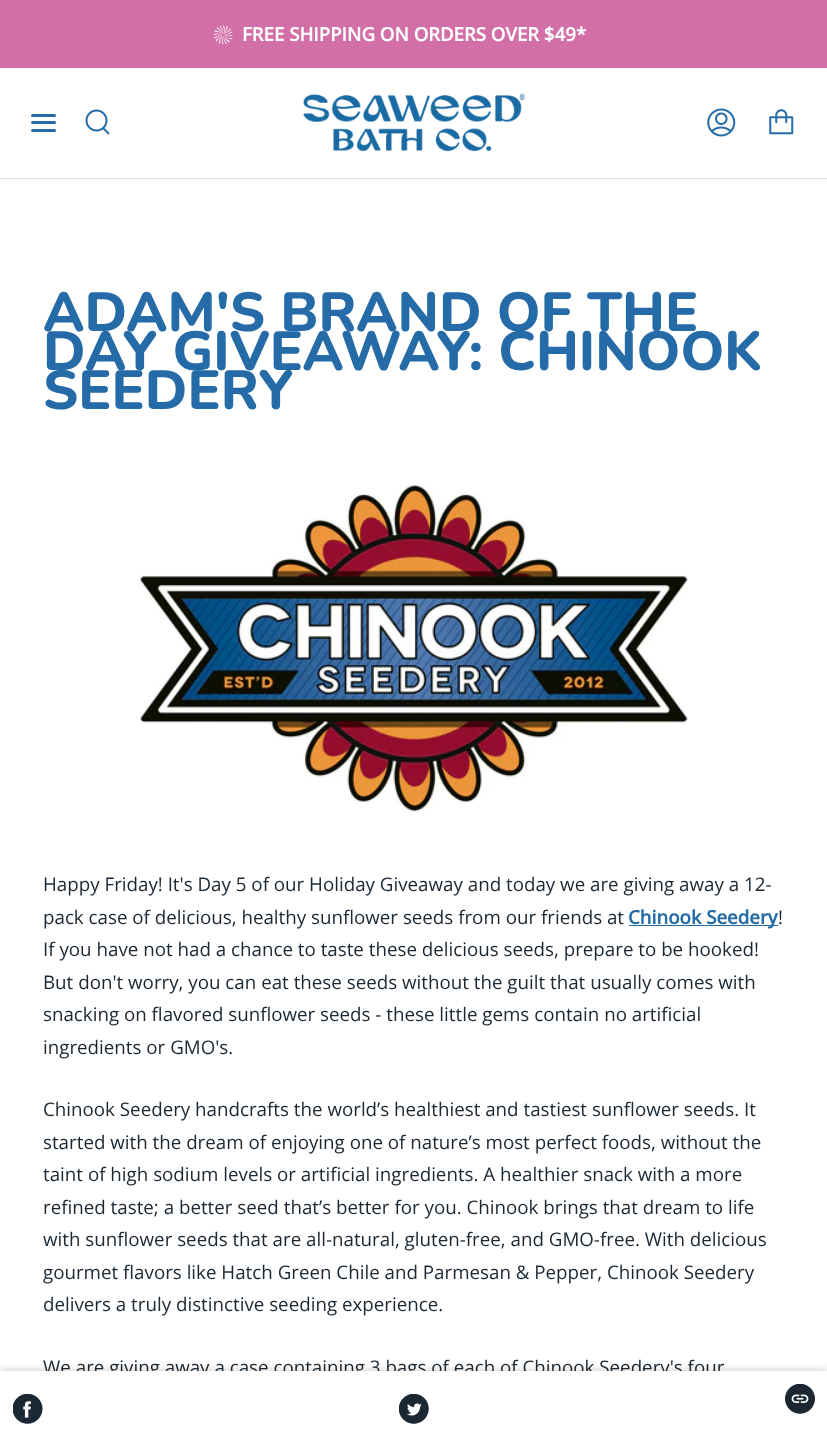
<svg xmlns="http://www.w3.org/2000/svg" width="827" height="1444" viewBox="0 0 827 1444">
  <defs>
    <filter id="blur1" x="-50%" y="-200%" width="200%" height="500%"><feGaussianBlur stdDeviation="3"/></filter>
  </defs>
  <rect width="100%" height="100%" fill="#ffffff"/>
  <rect x="0" y="0" width="827" height="68" fill="#d36fa7"/>
  <image x="214" y="25" width="19" height="19" href="img1.png"/>
  <text x="242" y="41" font-family="Open Sans" font-size="18.7" font-weight="bold" fill="#ffffff">FREE SHIPPING ON ORDERS OVER $49*</text>
  <rect x="0" y="178" width="827" height="1" fill="#dce1e2"/>
  <rect x="31" y="114" width="25" height="3" rx="1.5" fill="#246ba7"/>
  <rect x="31" y="121" width="25" height="3" rx="1.5" fill="#246ba7"/>
  <rect x="31" y="129" width="25" height="3" rx="1.5" fill="#246ba7"/>
  <image x="85" y="109" width="25" height="26" href="img2.png"/>
  <image x="303" y="93" width="222" height="59" href="img3.png"/>
  <image x="707" y="108" width="29" height="29" href="img4.png"/>
  <image x="769" y="109" width="25" height="26" href="img5.png"/>
  <text x="43" y="331" font-family="Nunito" font-size="55" font-weight="800" fill="#246ba7">ADAM'S BRAND OF THE</text>
  <text x="43" y="370" font-family="Nunito" font-size="55" font-weight="800" fill="#246ba7">DAY GIVEAWAY: CHINOOK</text>
  <text x="43" y="409" font-family="Nunito" font-size="55" font-weight="800" fill="#246ba7">SEEDERY</text>
  <image x="139" y="484" width="549" height="330" href="img6.png"/>
  <text x="43" y="891" font-family="Open Sans" font-size="18.75" fill="#1b2833">Happy Friday! It's Day 5 of our Holiday Giveaway and today we are giving away a 12-</text>
  <text x="43" y="924" font-family="Open Sans" font-size="18.75" fill="#1b2833">pack case of delicious, healthy sunflower seeds from our friends at</text>
  <rect x="629" y="925" width="149" height="1" fill="#246ba7"/>
  <text x="628" y="924" font-family="Open Sans" font-size="18.75" font-weight="bold" fill="#246ba7">Chinook Seedery</text>
  <text x="778" y="924" font-family="Open Sans" font-size="18.75" fill="#1b2833">!</text>
  <text x="43" y="956" font-family="Open Sans" font-size="18.75" fill="#1b2833">If you have not had a chance to taste these delicious seeds, prepare to be hooked!</text>
  <text x="43" y="989" font-family="Open Sans" font-size="18.75" fill="#1b2833">But don't worry, you can eat these seeds without the guilt that usually comes with</text>
  <text x="43" y="1021" font-family="Open Sans" font-size="18.75" fill="#1b2833">snacking on flavored sunflower seeds - these little gems contain no artificial</text>
  <text x="43" y="1054" font-family="Open Sans" font-size="18.75" fill="#1b2833">ingredients or GMO's.</text>
  <text x="43" y="1116" font-family="Open Sans" font-size="18.75" fill="#1b2833">Chinook Seedery handcrafts the world’s healthiest and tastiest sunflower seeds. It</text>
  <text x="43" y="1149" font-family="Open Sans" font-size="18.75" fill="#1b2833">started with the dream of enjoying one of nature’s most perfect foods, without the</text>
  <text x="43" y="1181" font-family="Open Sans" font-size="18.75" fill="#1b2833">taint of high sodium levels or artificial ingredients. A healthier snack with a more</text>
  <text x="43" y="1214" font-family="Open Sans" font-size="18.75" fill="#1b2833">refined taste; a better seed that’s better for you. Chinook brings that dream to life</text>
  <text x="43" y="1246" font-family="Open Sans" font-size="18.75" fill="#1b2833">with sunflower seeds that are all-natural, gluten-free, and GMO-free. With delicious</text>
  <text x="43" y="1279" font-family="Open Sans" font-size="18.75" fill="#1b2833">gourmet flavors like Hatch Green Chile and Parmesan &amp; Pepper, Chinook Seedery</text>
  <text x="43" y="1311" font-family="Open Sans" font-size="18.75" fill="#1b2833">delivers a truly distinctive seeding experience.</text>
  <text x="43" y="1374" font-family="Open Sans" font-size="18.75" fill="#1b2833">We are giving away a case containing 3 bags of each of Chinook Seedery's four</text>
  <rect x="0" y="1369" width="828" height="74" fill="#000000" fill-opacity="0.15" filter="url(#blur1)"/>
  <rect x="0" y="1371" width="827" height="73" fill="#ffffff"/>
  <image x="13" y="1394" width="30" height="30" href="img7.png"/>
  <image x="399" y="1394" width="30" height="30" href="img8.png"/>
  <image x="785" y="1384" width="30" height="30" href="img9.png"/>
</svg>
